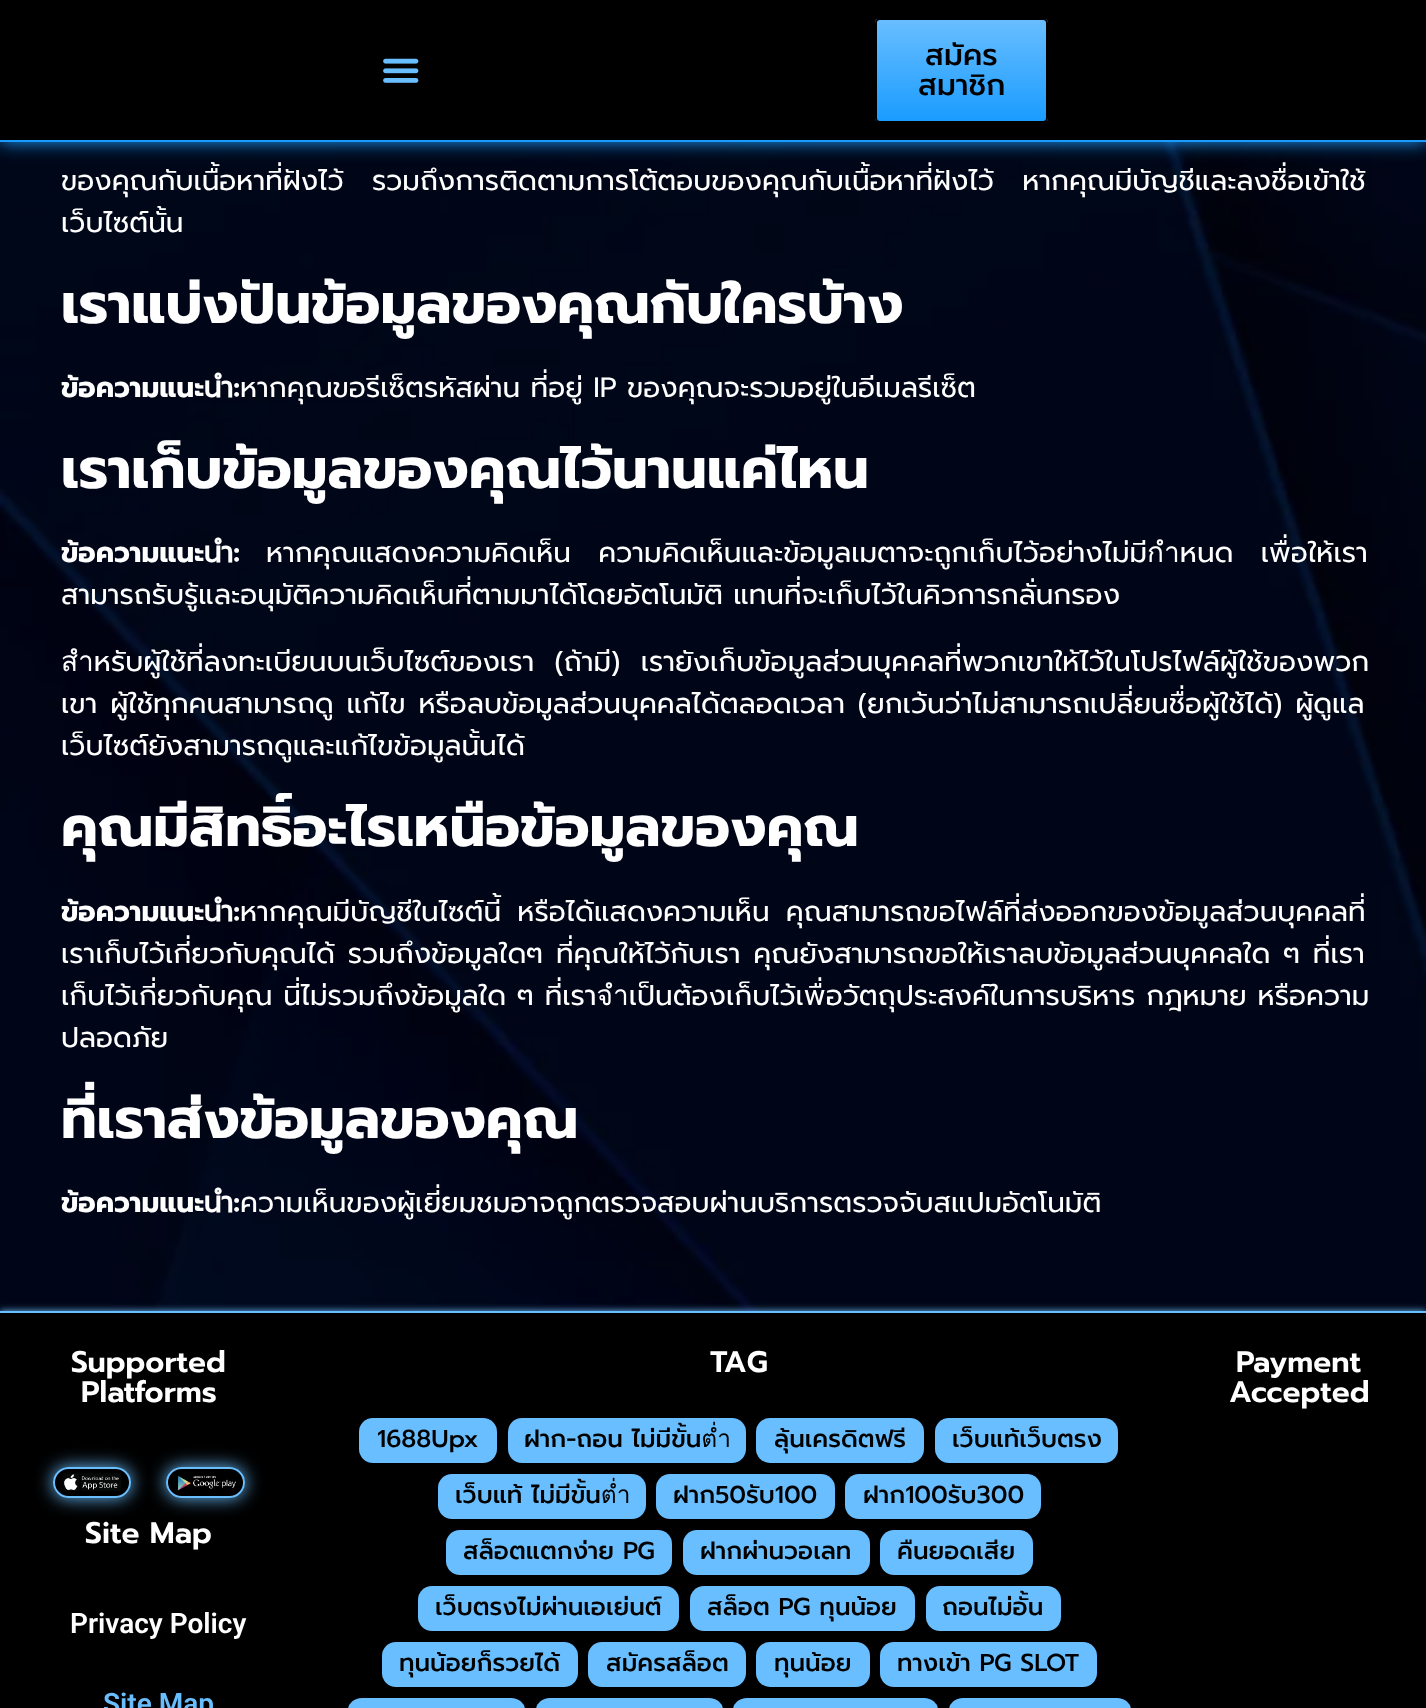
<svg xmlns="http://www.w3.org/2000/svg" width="1426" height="1708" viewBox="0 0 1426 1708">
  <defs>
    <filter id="blur1" x="-50%" y="-200%" width="200%" height="500%"><feGaussianBlur stdDeviation="9"/></filter>
    <clipPath id="clip1"><rect x="875" y="18" width="173" height="105" rx="5"/></clipPath>
    <linearGradient id="g1" gradientUnits="userSpaceOnUse" x1="962" y1="19" x2="962" y2="121"><stop offset="0" stop-color="#69beff"/><stop offset="1" stop-color="#1a9cff"/></linearGradient>
    <filter id="blur2" x="-50%" y="-200%" width="200%" height="500%"><feGaussianBlur stdDeviation="3.5"/></filter>
    <clipPath id="clip2"><path d="M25 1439H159V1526H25ZM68.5 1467H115.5C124 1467 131 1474 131 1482.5C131 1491 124 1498 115.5 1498H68.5C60 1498 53 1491 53 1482.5C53 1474 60 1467 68.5 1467Z" clip-rule="evenodd"/></clipPath>
    <clipPath id="clip3"><path d="M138 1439H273V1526H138ZM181.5 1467H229.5C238 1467 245 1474 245 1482.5C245 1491 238 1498 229.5 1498H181.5C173 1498 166 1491 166 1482.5C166 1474 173 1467 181.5 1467Z" clip-rule="evenodd"/></clipPath>
  </defs>
  <rect width="100%" height="100%" fill="#ffffff"/>
  <image x="0" y="142" width="1426" height="1169" href="img1.png"/>
  <rect x="0" y="142" width="1426" height="1169" fill="#000000" fill-opacity="0.63"/>
  <rect x="0" y="0" width="1426" height="142" fill="#1a9cff" filter="url(#blur1)"/>
  <rect x="0" y="0" width="1426" height="140" fill="#000000"/>
  <rect x="0" y="140" width="1426" height="2" fill="#1a9cff"/>
  <image x="383" y="58" width="36" height="25" href="img2.png"/>
  <g clip-path="url(#clip1)">
    <rect x="875" y="19" width="173" height="102" fill="url(#g1)"/>
  </g>
  <rect x="876" y="19" width="171" height="103" rx="4" fill="none" stroke="#000000" stroke-width="2"/>
  <text x="925" y="65" font-family="Prompt" font-size="29.75" font-weight="500" fill="#000000">สมัคร</text>
  <text x="918" y="95" font-family="Prompt" font-size="29.75" font-weight="500" fill="#000000">สมาชิก</text>
  <text x="61" y="190" word-spacing="18" font-family="Prompt" font-size="28" fill="#ffffff">ของคุณกับเนื้อหาที่ฝังไว้ รวมถึงการติดตามการโต้ตอบของคุณกับเนื้อหาที่ฝังไว้ หากคุณมีบัญชีและลงชื่อเข้าใช้</text>
  <text x="61" y="232" font-family="Prompt" font-size="28" fill="#ffffff">เว็บไซต์นั้น</text>
  <text x="61" y="323" font-family="Prompt" font-size="56" font-weight="bold" fill="#ffffff">เราแบ่งปันข้อมูลของคุณกับใครบ้าง</text>
  <text x="61" y="397" font-family="Prompt" font-size="28" font-weight="bold" fill="#ffffff">ข้อความแนะนำ:</text>
  <text x="240" y="397" font-family="Prompt" font-size="28" fill="#ffffff">หากคุณขอรีเซ็ตรหัสผ่าน ที่อยู่ IP ของคุณจะรวมอยู่ในอีเมลรีเซ็ต</text>
  <text x="61" y="488" font-family="Prompt" font-size="56" font-weight="bold" fill="#ffffff">เราเก็บข้อมูลของคุณไว้นานแค่ไหน</text>
  <text x="61" y="562" font-family="Prompt" font-size="28" font-weight="bold" fill="#ffffff">ข้อความแนะนำ:</text>
  <text x="266" y="562" word-spacing="17" font-family="Prompt" font-size="28" fill="#ffffff">หากคุณแสดงความคิดเห็น ความคิดเห็นและข้อมูลเมตาจะถูกเก็บไว้อย่างไม่มีกำหนด เพื่อให้เรา</text>
  <text x="61" y="604" font-family="Prompt" font-size="28" fill="#ffffff">สามารถรับรู้และอนุมัติความคิดเห็นที่ตามมาได้โดยอัตโนมัติ แทนที่จะเก็บไว้ในคิวการกลั่นกรอง</text>
  <text x="61" y="671" word-spacing="10" font-family="Prompt" font-size="28" fill="#ffffff">สำหรับผู้ใช้ที่ลงทะเบียนบนเว็บไซต์ของเรา (ถ้ามี) เรายังเก็บข้อมูลส่วนบุคคลที่พวกเขาให้ไว้ในโปรไฟล์ผู้ใช้ของพวก</text>
  <text x="61" y="713" word-spacing="2.5" font-family="Prompt" font-size="28" fill="#ffffff">เขา ผู้ใช้ทุกคนสามารถดู แก้ไข หรือลบข้อมูลส่วนบุคคลได้ตลอดเวลา (ยกเว้นว่าไม่สามารถเปลี่ยนชื่อผู้ใช้ได้) ผู้ดูแล</text>
  <text x="61" y="755" font-family="Prompt" font-size="28" fill="#ffffff">เว็บไซต์ยังสามารถดูและแก้ไขข้อมูลนั้นได้</text>
  <text x="61" y="846" font-family="Prompt" font-size="56" font-weight="bold" fill="#ffffff">คุณมีสิทธิ์อะไรเหนือข้อมูลของคุณ</text>
  <text x="61" y="921" font-family="Prompt" font-size="28" font-weight="bold" fill="#ffffff">ข้อความแนะนำ:</text>
  <text x="240" y="921" word-spacing="6" font-family="Prompt" font-size="28" fill="#ffffff">หากคุณมีบัญชีในไซต์นี้ หรือได้แสดงความเห็น คุณสามารถขอไฟล์ที่ส่งออกของข้อมูลส่วนบุคคลที่</text>
  <text x="61" y="963" word-spacing="2.5" font-family="Prompt" font-size="28" fill="#ffffff">เราเก็บไว้เกี่ยวกับคุณได้ รวมถึงข้อมูลใดๆ ที่คุณให้ไว้กับเรา คุณยังสามารถขอให้เราลบข้อมูลส่วนบุคคลใด ๆ ที่เรา</text>
  <text x="61" y="1005" word-spacing="0.5" font-family="Prompt" font-size="28" fill="#ffffff">เก็บไว้เกี่ยวกับคุณ นี่ไม่รวมถึงข้อมูลใด ๆ ที่เราจำเป็นต้องเก็บไว้เพื่อวัตถุประสงค์ในการบริหาร กฎหมาย หรือความ</text>
  <text x="61" y="1047" font-family="Prompt" font-size="28" fill="#ffffff">ปลอดภัย</text>
  <text x="61" y="1138" font-family="Prompt" font-size="56" font-weight="bold" fill="#ffffff">ที่เราส่งข้อมูลของคุณ</text>
  <text x="61" y="1212" font-family="Prompt" font-size="28" font-weight="bold" fill="#ffffff">ข้อความแนะนำ:</text>
  <text x="240" y="1212" font-family="Prompt" font-size="28" fill="#ffffff">ความเห็นของผู้เยี่ยมชมอาจถูกตรวจสอบผ่านบริการตรวจจับสแปมอัตโนมัติ</text>
  <rect x="0" y="1311" width="1426" height="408" fill="#69beff" filter="url(#blur2)"/>
  <rect x="0" y="1313" width="1426" height="395" fill="#000000"/>
  <rect x="0" y="1311" width="1426" height="2" fill="#69beff"/>
  <text x="71" y="1372" font-family="Prompt" font-size="29.75" font-weight="600" fill="#ffffff">Supported</text>
  <text x="81" y="1402" font-family="Prompt" font-size="29.75" font-weight="600" fill="#ffffff">Platforms</text>
  <g clip-path="url(#clip2)">
    <rect x="53" y="1467" width="78" height="31" rx="15.5" fill="#69beff" filter="url(#blur1)"/>
  </g>
  <rect x="54" y="1468" width="76" height="29" rx="14.5" fill="none" stroke="#69beff" stroke-width="2"/>
  <image x="63" y="1472" width="62" height="21" href="img3.png"/>
  <g clip-path="url(#clip3)">
    <rect x="166" y="1467" width="79" height="31" rx="15.5" fill="#69beff" filter="url(#blur1)"/>
  </g>
  <rect x="167" y="1468" width="77" height="29" rx="14.5" fill="none" stroke="#69beff" stroke-width="2"/>
  <image x="178" y="1475" width="58" height="16" href="img4.png"/>
  <text x="85" y="1543" font-family="Prompt" font-size="29.75" font-weight="600" fill="#ffffff">Site Map</text>
  <text x="70" y="1633" font-family="Roboto" font-size="28" font-weight="600" fill="#ffffff">Privacy Policy</text>
  <text x="103" y="1713" font-family="Roboto" font-size="28" font-weight="600" fill="#69beff">Site Map</text>
  <text x="710" y="1372" font-family="Prompt" font-size="29.75" font-weight="600" fill="#ffffff">TAG</text>
  <rect x="359" y="1418" width="138" height="45" rx="14" fill="#69beff"/>
  <text x="377" y="1447" font-family="Prompt" font-size="24.5" font-weight="500" fill="#000000">1688Upx</text>
  <rect x="508" y="1418" width="238" height="45" rx="14" fill="#69beff"/>
  <text x="524" y="1447" font-family="Prompt" font-size="24.5" font-weight="500" fill="#000000">ฝาก-ถอน ไม่มีขั้นต่ำ</text>
  <rect x="756" y="1418" width="168" height="45" rx="14" fill="#69beff"/>
  <text x="774" y="1447" font-family="Prompt" font-size="24.5" font-weight="500" fill="#000000">ลุ้นเครดิตฟรี</text>
  <rect x="935" y="1418" width="183" height="45" rx="14" fill="#69beff"/>
  <text x="952" y="1447" font-family="Prompt" font-size="24.5" font-weight="500" fill="#000000">เว็บแท้เว็บตรง</text>
  <rect x="438" y="1474" width="208" height="45" rx="14" fill="#69beff"/>
  <text x="455" y="1503" font-family="Prompt" font-size="24.5" font-weight="500" fill="#000000">เว็บแท้ ไม่มีขั้นต่ำ</text>
  <rect x="656" y="1474" width="179" height="45" rx="14" fill="#69beff"/>
  <text x="673" y="1503" font-family="Prompt" font-size="24.5" font-weight="500" fill="#000000">ฝาก50รับ100</text>
  <rect x="845" y="1474" width="196" height="45" rx="14" fill="#69beff"/>
  <text x="863" y="1503" font-family="Prompt" font-size="24.5" font-weight="500" fill="#000000">ฝาก100รับ300</text>
  <rect x="446" y="1530" width="226" height="45" rx="14" fill="#69beff"/>
  <text x="463" y="1559" font-family="Prompt" font-size="24.5" font-weight="500" fill="#000000">สล็อตแตกง่าย PG</text>
  <rect x="683" y="1530" width="187" height="45" rx="14" fill="#69beff"/>
  <text x="700" y="1559" font-family="Prompt" font-size="24.5" font-weight="500" fill="#000000">ฝากผ่านวอเลท</text>
  <rect x="880" y="1530" width="153" height="45" rx="14" fill="#69beff"/>
  <text x="897" y="1559" font-family="Prompt" font-size="24.5" font-weight="500" fill="#000000">คืนยอดเสีย</text>
  <rect x="418" y="1586" width="261" height="45" rx="14" fill="#69beff"/>
  <text x="435" y="1615" font-family="Prompt" font-size="24.5" font-weight="500" fill="#000000">เว็บตรงไม่ผ่านเอเย่นต์</text>
  <rect x="690" y="1586" width="225" height="45" rx="14" fill="#69beff"/>
  <text x="707" y="1615" font-family="Prompt" font-size="24.5" font-weight="500" fill="#000000">สล็อต PG ทุนน้อย</text>
  <rect x="926" y="1586" width="135" height="45" rx="14" fill="#69beff"/>
  <text x="942" y="1615" font-family="Prompt" font-size="24.5" font-weight="500" fill="#000000">ถอนไม่อั้น</text>
  <rect x="382" y="1642" width="196" height="45" rx="14" fill="#69beff"/>
  <text x="399" y="1671" font-family="Prompt" font-size="24.5" font-weight="500" fill="#000000">ทุนน้อยก็รวยได้</text>
  <rect x="588" y="1642" width="158" height="45" rx="14" fill="#69beff"/>
  <text x="606" y="1671" font-family="Prompt" font-size="24.5" font-weight="500" fill="#000000">สมัครสล็อต</text>
  <rect x="756" y="1642" width="114" height="45" rx="14" fill="#69beff"/>
  <text x="774" y="1671" font-family="Prompt" font-size="24.5" font-weight="500" fill="#000000">ทุนน้อย</text>
  <rect x="880" y="1642" width="217" height="45" rx="14" fill="#69beff"/>
  <text x="897" y="1671" font-family="Prompt" font-size="24.5" font-weight="500" fill="#000000">ทางเข้า PG SLOT</text>
  <rect x="348" y="1698" width="177" height="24" rx="14" fill="#69beff"/>
  <rect x="536" y="1698" width="187" height="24" rx="14" fill="#69beff"/>
  <rect x="733" y="1698" width="205" height="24" rx="14" fill="#69beff"/>
  <rect x="949" y="1698" width="182" height="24" rx="14" fill="#69beff"/>
  <text x="1236" y="1372" font-family="Prompt" font-size="29.75" font-weight="600" fill="#ffffff">Payment</text>
  <text x="1229" y="1402" font-family="Prompt" font-size="29.75" font-weight="600" fill="#ffffff">Accepted</text>
</svg>
